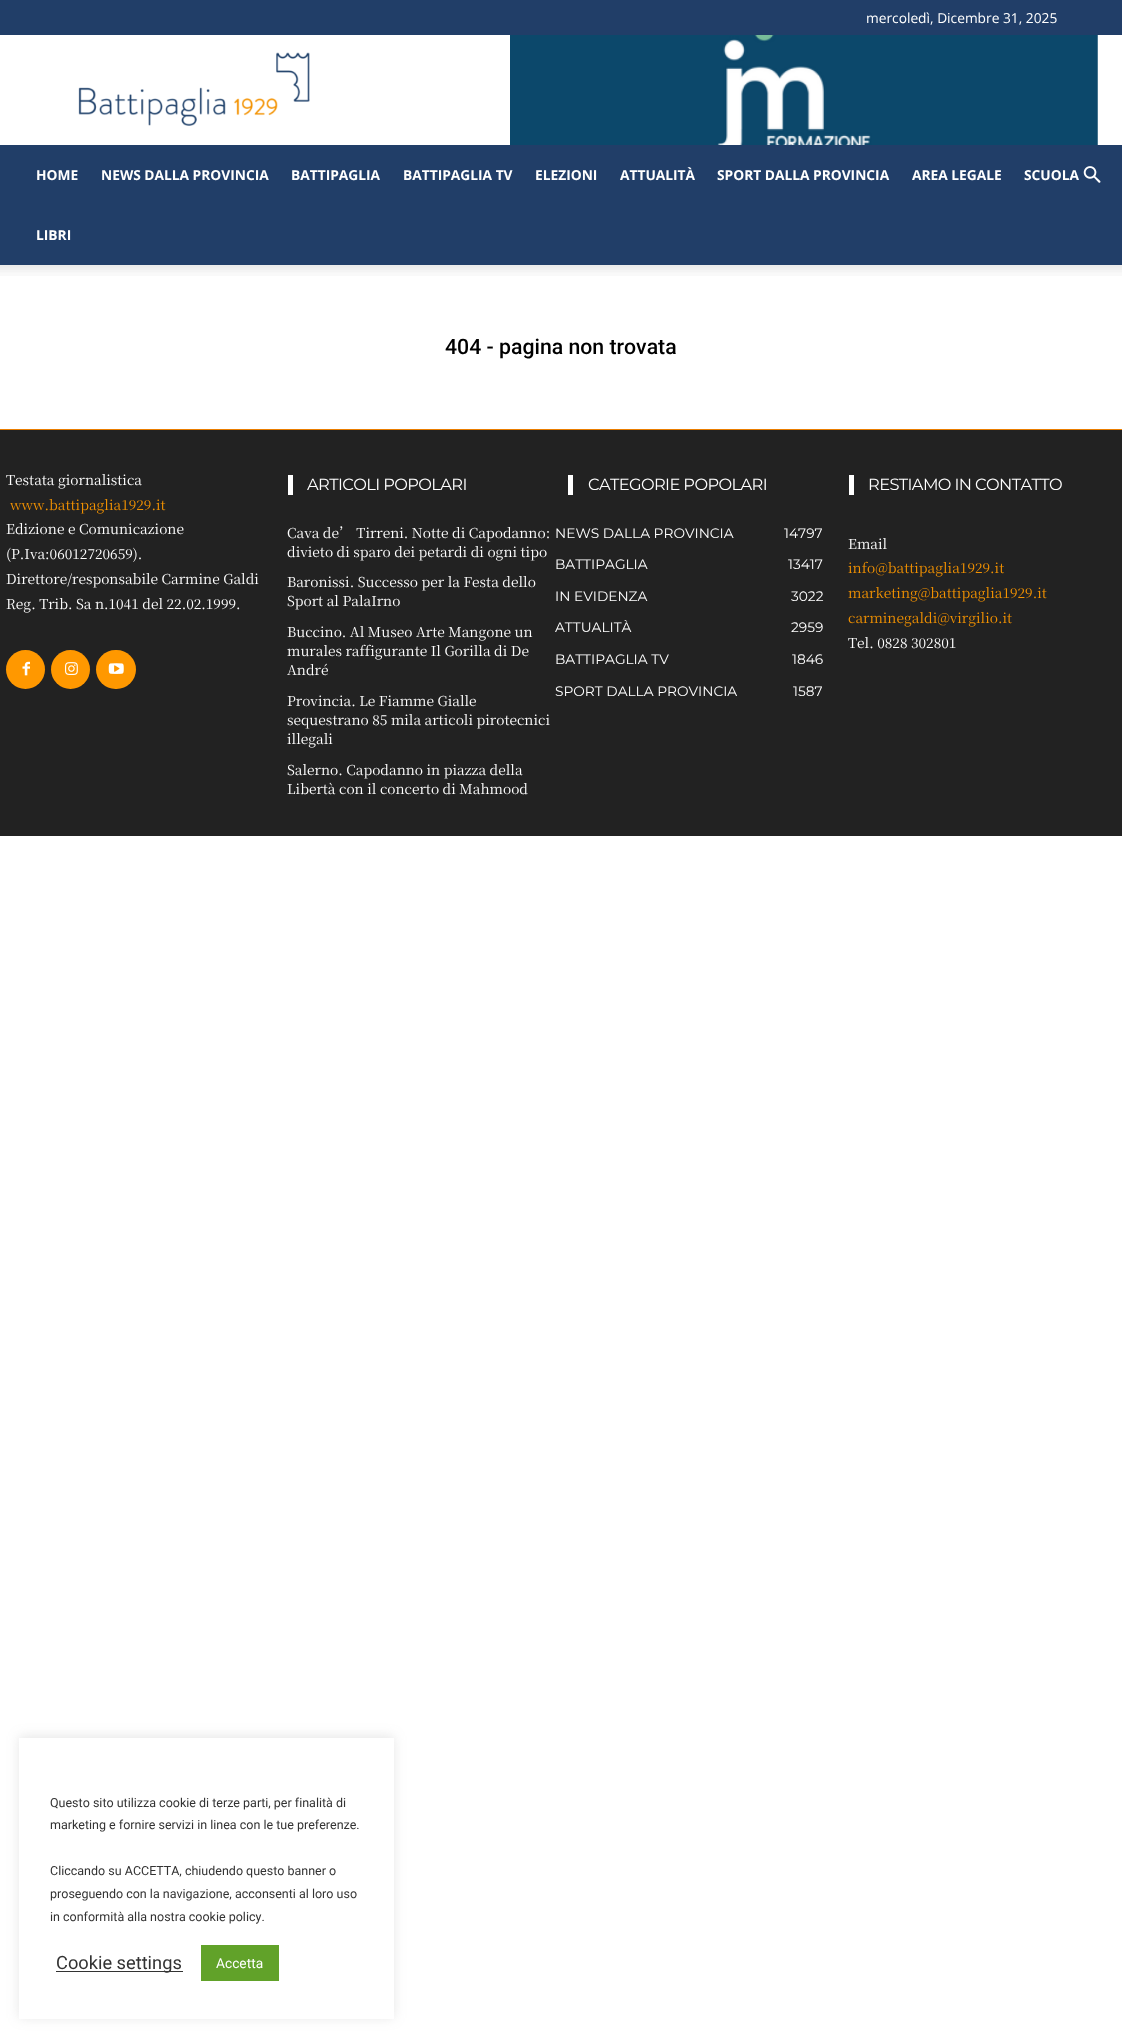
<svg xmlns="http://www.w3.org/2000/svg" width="1122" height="2037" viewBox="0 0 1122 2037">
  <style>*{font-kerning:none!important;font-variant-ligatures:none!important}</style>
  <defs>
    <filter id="blur1" x="-50%" y="-200%" width="200%" height="500%"><feGaussianBlur stdDeviation="6"/></filter>
  </defs>
  <rect width="100%" height="100%" fill="#ffffff"/>
  <rect x="0" y="0" width="1122" height="35" fill="#213e68"/>
  <text x="866" y="23" font-family="Open Sans" font-size="13.75" fill="#ffffff">mercoledì, Dicembre 31, 2025</text>
  <image x="78" y="52" width="232" height="74" href="img1.png"/>
  <image x="1097" y="35" width="1" height="110" href="img3.png"/>
  <image x="510" y="35" width="588" height="110" href="img2.png"/>
  <rect x="0" y="145" width="1122" height="120" fill="#213e68"/>
  <text x="36" y="180" font-family="Open Sans" font-size="13.75" font-weight="bold" fill="#ffffff">HOME</text>
  <text x="101" y="180" font-family="Open Sans" font-size="13.75" font-weight="bold" fill="#ffffff">NEWS DALLA PROVINCIA</text>
  <text x="291" y="180" font-family="Open Sans" font-size="13.75" font-weight="bold" fill="#ffffff">BATTIPAGLIA</text>
  <text x="403" y="180" font-family="Open Sans" font-size="13.75" font-weight="bold" fill="#ffffff">BATTIPAGLIA TV</text>
  <text x="535" y="180" font-family="Open Sans" font-size="13.75" font-weight="bold" fill="#ffffff">ELEZIONI</text>
  <text x="620" y="180" font-family="Open Sans" font-size="13.75" font-weight="bold" fill="#ffffff">ATTUALITÀ</text>
  <text x="717" y="180" font-family="Open Sans" font-size="13.75" font-weight="bold" fill="#ffffff">SPORT DALLA PROVINCIA</text>
  <text x="912" y="180" font-family="Open Sans" font-size="13.75" font-weight="bold" fill="#ffffff">AREA LEGALE</text>
  <text x="1024" y="180" font-family="Open Sans" font-size="13.75" font-weight="bold" fill="#ffffff">SCUOLA</text>
  <text x="36" y="240" font-family="Open Sans" font-size="13.75" font-weight="bold" fill="#ffffff">LIBRI</text>
  <image x="1083" y="166" width="18" height="17" href="img4.png"/>
  <image x="0" y="265" width="1122" height="11" href="img5.png"/>
  <text x="445" y="354" font-family="Roboto" font-size="21.25" font-weight="500" fill="#000000">404 - pagina non trovata</text>
  <rect x="0" y="429" width="1122" height="1" fill="#ea7d00"/>
  <rect x="0" y="430" width="1122" height="406" fill="#222222"/>
  <text x="6" y="485" font-family="Noto Serif TC" font-size="13.75" font-weight="200" fill="#ffffff">Testata giornalistica</text>
  <text x="10" y="510" font-family="Noto Serif TC" font-size="13.75" font-weight="200" fill="#f39200">www.battipaglia1929.it</text>
  <text x="6" y="534" font-family="Noto Serif TC" font-size="13.75" font-weight="200" fill="#ffffff">Edizione e Comunicazione</text>
  <text x="6" y="559" font-family="Noto Serif TC" font-size="13.75" font-weight="200" fill="#ffffff">(P.Iva:06012720659).</text>
  <text x="6" y="584" font-family="Noto Serif TC" font-size="13.75" font-weight="200" fill="#ffffff">Direttore/responsabile Carmine Galdi</text>
  <text x="6" y="609" font-family="Noto Serif TC" font-size="13.75" font-weight="200" fill="#ffffff">Reg. Trib. Sa n.1041 del 22.02.1999.</text>
  <circle cx="25.5" cy="669.5" r="19.5" fill="#ff9800"/>
  <image x="22" y="661" width="8" height="15" href="img6.png"/>
  <circle cx="70.5" cy="669.5" r="19.5" fill="#ff9800"/>
  <image x="65" y="662" width="13" height="13" href="img7.png"/>
  <rect x="96" y="650" width="40" height="39" rx="19.5" fill="#ff9800"/>
  <image x="108" y="663" width="16" height="11" href="img8.png"/>
  <rect x="288" y="475" width="5" height="20" fill="#ffffff"/>
  <text x="307" y="490" font-family="Montserrat" font-size="16.25" letter-spacing="-0.6" fill="#ffffff">ARTICOLI POPOLARI</text>
  <text x="287" y="538" font-family="Noto Serif TC" font-size="13.75" font-weight="200" fill="#ffffff">Cava de’ Tirreni. Notte di Capodanno:</text>
  <text x="287" y="557" font-family="Noto Serif TC" font-size="13.75" font-weight="200" fill="#ffffff">divieto di sparo dei petardi di ogni tipo</text>
  <text x="287" y="587" font-family="Noto Serif TC" font-size="13.75" font-weight="200" fill="#ffffff">Baronissi. Successo per la Festa dello</text>
  <text x="287" y="606" font-family="Noto Serif TC" font-size="13.75" font-weight="200" fill="#ffffff">Sport al PalaIrno</text>
  <text x="287" y="637" font-family="Noto Serif TC" font-size="13.75" font-weight="200" fill="#ffffff">Buccino. Al Museo Arte Mangone un</text>
  <text x="287" y="656" font-family="Noto Serif TC" font-size="13.75" font-weight="200" fill="#ffffff">murales raffigurante Il Gorilla di De</text>
  <text x="287" y="675" font-family="Noto Serif TC" font-size="13.75" font-weight="200" fill="#ffffff">André</text>
  <text x="287" y="706" font-family="Noto Serif TC" font-size="13.75" font-weight="200" fill="#ffffff">Provincia. Le Fiamme Gialle</text>
  <text x="287" y="725" font-family="Noto Serif TC" font-size="13.75" font-weight="200" fill="#ffffff">sequestrano 85 mila articoli pirotecnici</text>
  <text x="287" y="744" font-family="Noto Serif TC" font-size="13.75" font-weight="200" fill="#ffffff">illegali</text>
  <text x="287" y="775" font-family="Noto Serif TC" font-size="13.75" font-weight="200" fill="#ffffff">Salerno. Capodanno in piazza della</text>
  <text x="287" y="794" font-family="Noto Serif TC" font-size="13.75" font-weight="200" fill="#ffffff">Libertà con il concerto di Mahmood</text>
  <rect x="568" y="475" width="5" height="20" fill="#ffffff"/>
  <text x="588" y="490" font-family="Montserrat" font-size="16.25" letter-spacing="-0.6" fill="#ffffff">CATEGORIE POPOLARI</text>
  <text x="555" y="538" font-family="Montserrat" font-size="13.75" fill="#ffffff">NEWS DALLA PROVINCIA</text>
  <text x="784" y="538" font-family="Montserrat" font-size="13.75" fill="#ffffff">14797</text>
  <text x="555" y="569" font-family="Montserrat" font-size="13.75" fill="#ffffff">BATTIPAGLIA</text>
  <text x="788" y="569" font-family="Montserrat" font-size="13.75" fill="#ffffff">13417</text>
  <text x="555" y="601" font-family="Montserrat" font-size="13.75" fill="#ffffff">IN EVIDENZA</text>
  <text x="791" y="601" font-family="Montserrat" font-size="13.75" fill="#ffffff">3022</text>
  <text x="555" y="632" font-family="Montserrat" font-size="13.75" fill="#ffffff">ATTUALITÀ</text>
  <text x="791" y="632" font-family="Montserrat" font-size="13.75" fill="#ffffff">2959</text>
  <text x="555" y="664" font-family="Montserrat" font-size="13.75" fill="#ffffff">BATTIPAGLIA TV</text>
  <text x="792" y="664" font-family="Montserrat" font-size="13.75" fill="#ffffff">1846</text>
  <text x="555" y="696" font-family="Montserrat" font-size="13.75" fill="#ffffff">SPORT DALLA PROVINCIA</text>
  <text x="793" y="696" font-family="Montserrat" font-size="13.75" fill="#ffffff">1587</text>
  <rect x="849" y="475" width="5" height="20" fill="#ffffff"/>
  <text x="868" y="490" font-family="Montserrat" font-size="16.25" letter-spacing="-0.6" fill="#ffffff">RESTIAMO IN CONTATTO</text>
  <text x="848" y="549" font-family="Noto Serif TC" font-size="13.75" font-weight="200" fill="#ffffff">Email</text>
  <text x="848" y="573" font-family="Noto Serif TC" font-size="13.75" font-weight="200" fill="#f39200">info@battipaglia1929.it</text>
  <text x="848" y="598" font-family="Noto Serif TC" font-size="13.75" font-weight="200" fill="#f39200">marketing@battipaglia1929.it</text>
  <text x="848" y="623" font-family="Noto Serif TC" font-size="13.75" font-weight="200" fill="#f39200">carminegaldi@virgilio.it</text>
  <text x="848" y="648" font-family="Noto Serif TC" font-size="13.75" font-weight="200" fill="#ffffff">Tel. 0828 302801</text>
  <rect x="19" y="1736" width="375" height="282" fill="#acabab" fill-opacity="0.3" filter="url(#blur1)"/>
  <rect x="19" y="1738" width="375" height="281" fill="#ffffff"/>
  <text x="50" y="1807" font-family="Roboto" font-size="12.5" fill="#333333">Questo sito utilizza cookie di terze parti, per finalità di</text>
  <text x="50" y="1829" font-family="Roboto" font-size="12.5" fill="#333333">marketing e fornire servizi in linea con le tue preferenze.</text>
  <text x="50" y="1875" font-family="Roboto" font-size="12.5" fill="#333333">Cliccando su ACCETTA, chiudendo questo banner o</text>
  <text x="50" y="1898" font-family="Roboto" font-size="12.5" fill="#333333">proseguendo con la navigazione, acconsenti al loro uso</text>
  <text x="50" y="1921" font-family="Roboto" font-size="12.5" fill="#333333">in conformità alla nostra cookie policy.</text>
  <rect x="56" y="1971" width="127" height="1" fill="#333333"/>
  <text x="56" y="1969" font-family="Roboto" font-size="18.25" fill="#333333">Cookie settings</text>
  <rect x="201" y="1945" width="78" height="36" fill="#61a229"/>
  <text x="216" y="1968" font-family="Roboto" font-size="13.75" fill="#ffffff">Accetta</text>
</svg>
